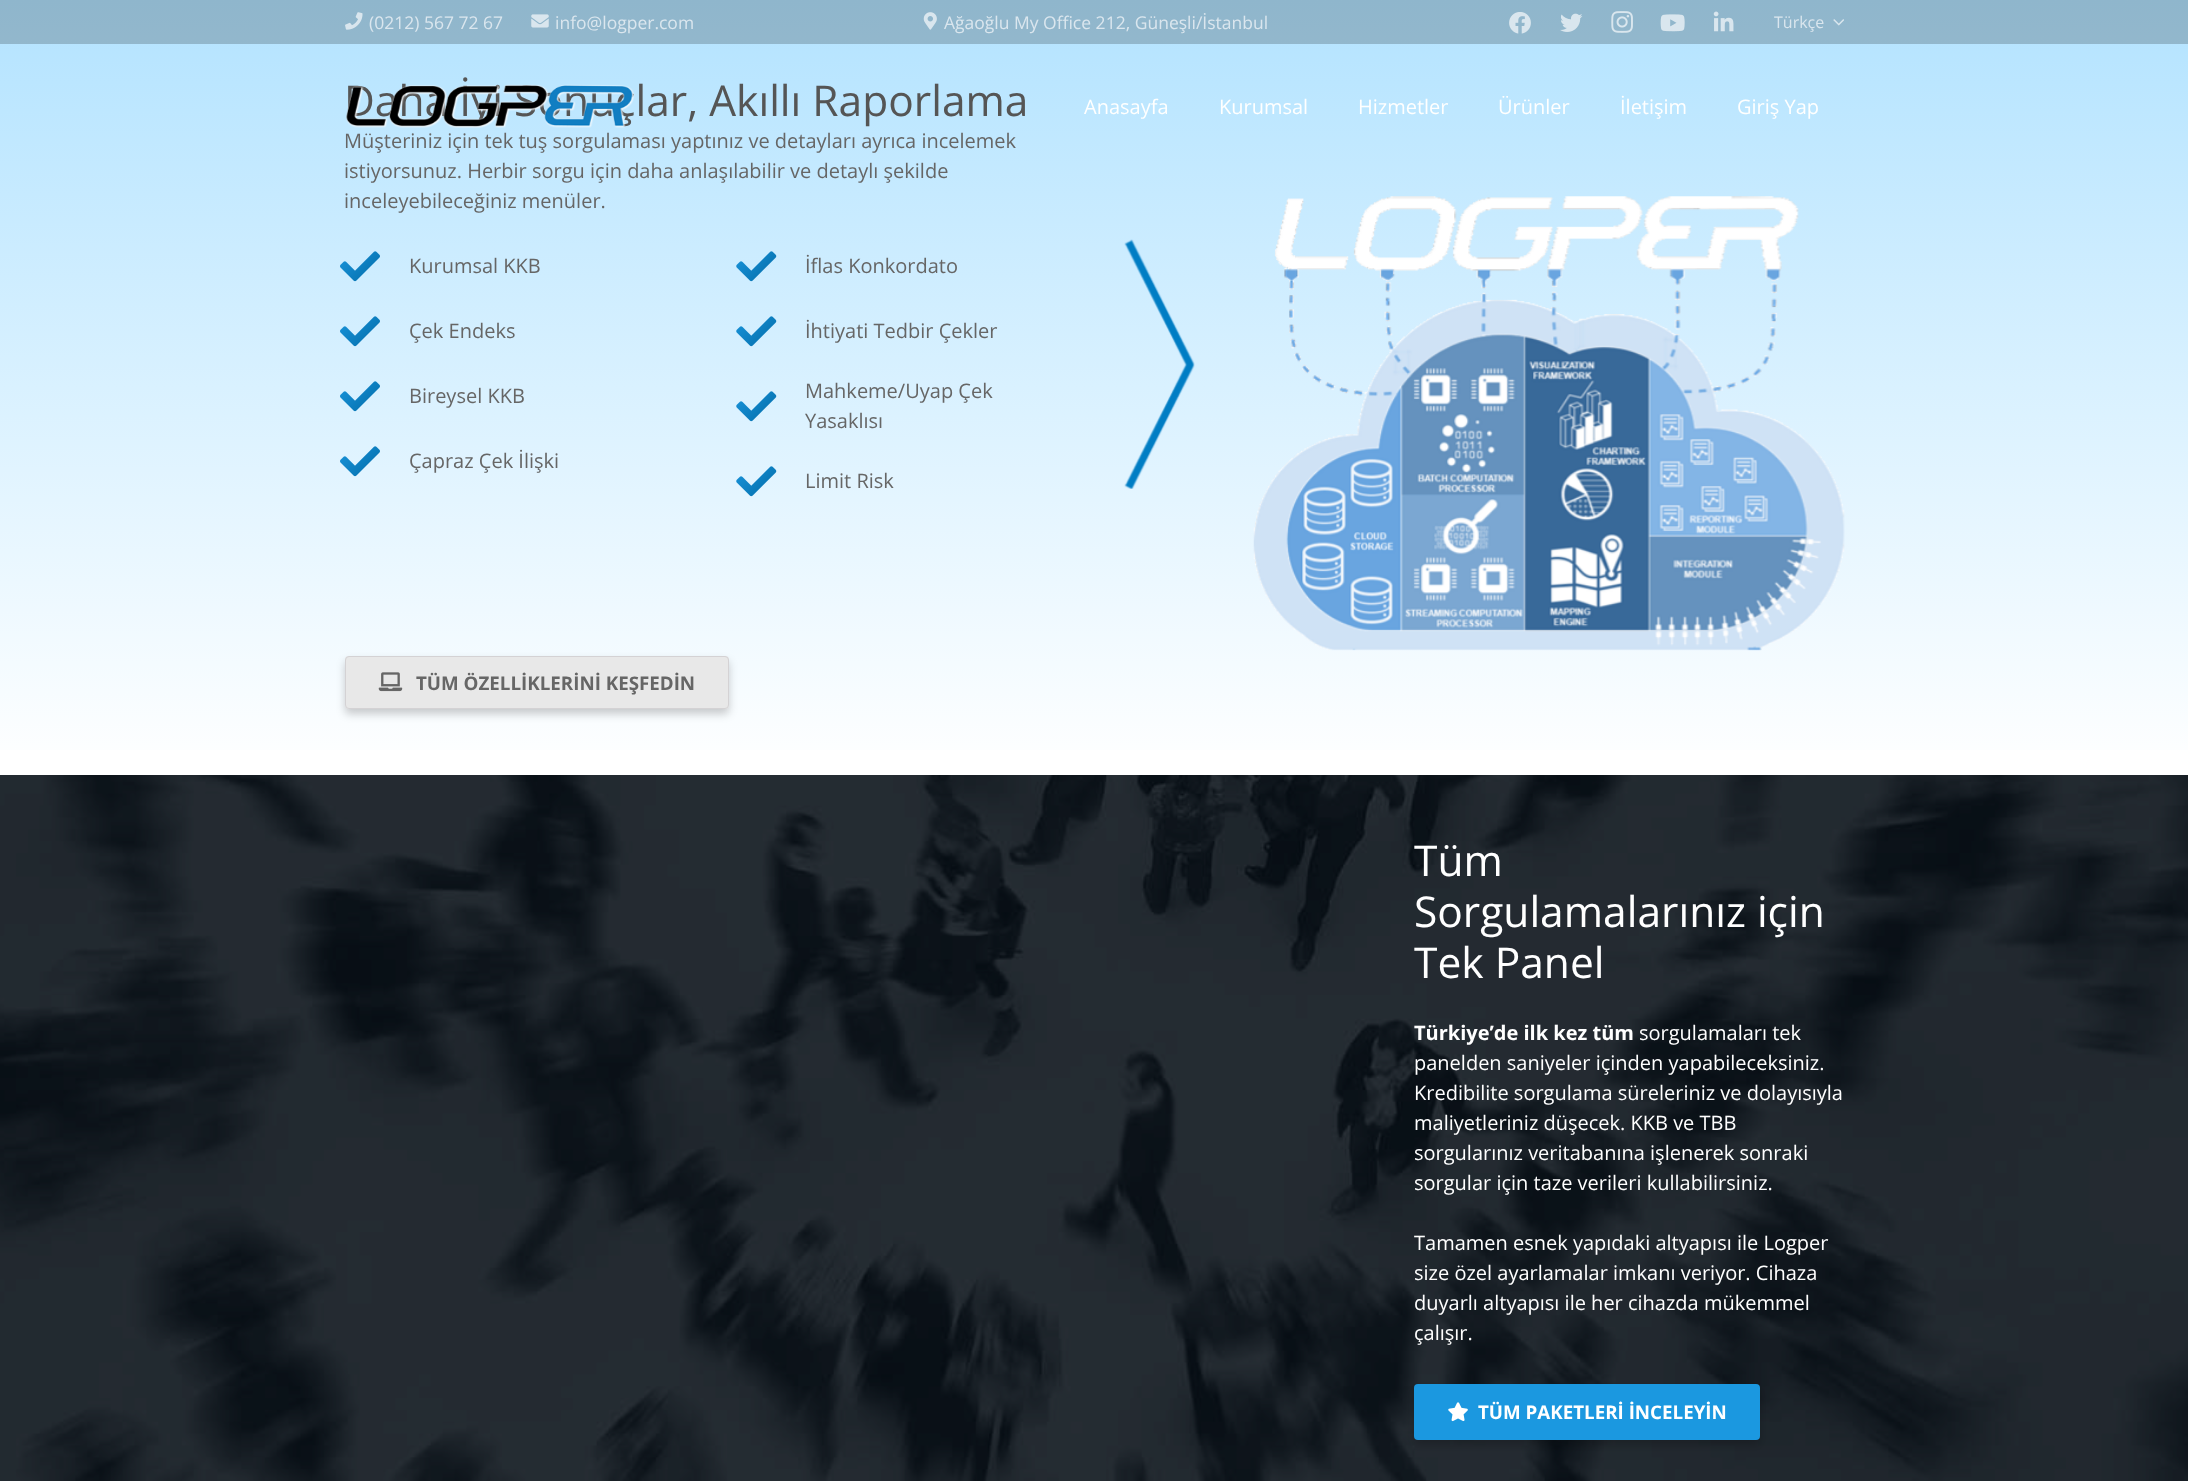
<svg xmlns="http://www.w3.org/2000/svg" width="2188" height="1481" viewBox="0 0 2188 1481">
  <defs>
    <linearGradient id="g1" gradientUnits="userSpaceOnUse" x1="1094" y1="0" x2="1094" y2="775"><stop offset="0" stop-color="#8fb6cc"/><stop offset="1" stop-color="#cccccc"/></linearGradient>
    <linearGradient id="g2" gradientUnits="userSpaceOnUse" x1="1094" y1="0" x2="1094" y2="775"><stop offset="0" stop-color="#b3e3ff"/><stop offset="1" stop-color="#ffffff"/></linearGradient>
    <filter id="blur1" x="-50%" y="-200%" width="200%" height="500%"><feGaussianBlur stdDeviation="4.5"/></filter>
  </defs>
  <rect width="100%" height="100%" fill="#ffffff"/>
  <rect x="0" y="0" width="2188" height="44" fill="url(#g1)"/>
  <image x="345" y="12" width="18" height="18" href="img1.png"/>
  <text x="369" y="29" font-family="Open Sans" font-size="17.5" fill="#dae6ee">(0212) 567 72 67</text>
  <image x="531" y="14" width="18" height="14" href="img2.png"/>
  <text x="555" y="29" font-family="Open Sans" font-size="17.5" fill="#dae6ee">info@logper.com</text>
  <image x="923" y="12" width="14" height="18" href="img3.png"/>
  <text x="944" y="29" font-family="Open Sans" font-size="17.5" fill="#dae6ee">Ağaoğlu My Office 212, Güneşli/İstanbul</text>
  <image x="1509" y="12" width="22" height="22" href="img4.png"/>
  <image x="1560" y="13" width="23" height="19" href="img5.png"/>
  <image x="1611" y="11" width="22" height="22" href="img6.png"/>
  <image x="1660" y="14" width="25" height="18" href="img7.png"/>
  <image x="1713" y="11" width="21" height="21" href="img8.png"/>
  <text x="1774" y="28" font-family="Open Sans" font-size="16" fill="#dae6ee">Türkçe</text>
  <image x="1833" y="19" width="11" height="7" href="img9.png"/>
  <rect x="0" y="44" width="2188" height="706" fill="url(#g2)"/>
  <text x="344" y="116" font-family="Open Sans" font-size="42.5" fill="#555555">Daha İyi Sonuçlar, Akıllı Raporlama</text>
  <image x="346" y="84" width="289" height="44" href="img10.png"/>
  <text x="1084" y="114" font-family="Open Sans" font-size="20" fill="#ffffff">Anasayfa</text>
  <text x="1219" y="114" font-family="Open Sans" font-size="20" fill="#ffffff">Kurumsal</text>
  <text x="1358" y="114" font-family="Open Sans" font-size="20" fill="#ffffff">Hizmetler</text>
  <text x="1498" y="114" font-family="Open Sans" font-size="20" fill="#ffffff">Ürünler</text>
  <text x="1620" y="114" font-family="Open Sans" font-size="20" fill="#ffffff">İletişim</text>
  <text x="1737" y="114" font-family="Open Sans" font-size="20" fill="#ffffff">Giriş Yap</text>
  <text x="344" y="148" font-family="Open Sans" font-size="20" fill="#666666">Müşteriniz için tek tuş sorgulaması yaptınız ve detayları ayrıca incelemek</text>
  <text x="344" y="178" font-family="Open Sans" font-size="20" fill="#666666">istiyorsunuz. Herbir sorgu için daha anlaşılabilir ve detaylı şekilde</text>
  <text x="344" y="208" font-family="Open Sans" font-size="20" fill="#666666">inceleyebileceğiniz menüler.</text>
  <image x="340" y="251" width="40" height="31" href="img11.png"/>
  <text x="409" y="273" font-family="Open Sans" font-size="20" fill="#666666">Kurumsal KKB</text>
  <image x="340" y="316" width="40" height="31" href="img12.png"/>
  <text x="409" y="338" font-family="Open Sans" font-size="20" fill="#666666">Çek Endeks</text>
  <image x="340" y="381" width="40" height="31" href="img13.png"/>
  <text x="409" y="403" font-family="Open Sans" font-size="20" fill="#666666">Bireysel KKB</text>
  <image x="340" y="446" width="40" height="31" href="img14.png"/>
  <text x="409" y="468" font-family="Open Sans" font-size="20" fill="#666666">Çapraz Çek İlişki</text>
  <image x="736" y="251" width="41" height="31" href="img15.png"/>
  <text x="805" y="273" font-family="Open Sans" font-size="20" fill="#666666">İflas Konkordato</text>
  <image x="736" y="316" width="41" height="31" href="img16.png"/>
  <text x="805" y="338" font-family="Open Sans" font-size="20" fill="#666666">İhtiyati Tedbir Çekler</text>
  <image x="736" y="391" width="41" height="31" href="img17.png"/>
  <text x="805" y="398" font-family="Open Sans" font-size="20" fill="#666666">Mahkeme/Uyap Çek</text>
  <text x="805" y="428" font-family="Open Sans" font-size="20" fill="#666666">Yasaklısı</text>
  <image x="736" y="466" width="41" height="31" href="img18.png"/>
  <text x="805" y="488" font-family="Open Sans" font-size="20" fill="#666666">Limit Risk</text>
  <image x="1124" y="239" width="71" height="250" href="img19.png"/>
  <image x="1253" y="196" width="592" height="455" href="img20.png"/>
  <rect x="345" y="661" width="384" height="53" rx="4" fill="#000000" fill-opacity="0.2" filter="url(#blur1)"/>
  <rect x="345" y="656" width="384" height="53" rx="4" fill="#e8e8e8"/>
  <image x="378" y="672" width="25" height="20" href="img21.png"/>
  <rect x="345.5" y="656.5" width="383" height="52" rx="3.5" fill="none" stroke="#d4d2d4"/>
  <text x="416" y="690" font-family="Open Sans" font-size="18.75" font-weight="bold" fill="#666666">TÜM ÖZELLİKLERİNİ KEŞFEDİN</text>
  <image x="0" y="775" width="2188" height="706" href="img22.png"/>
  <text x="1414" y="876" font-family="Open Sans" font-size="42.5" fill="#ffffff">Tüm</text>
  <text x="1414" y="927" font-family="Open Sans" font-size="42.5" fill="#ffffff">Sorgulamalarınız için</text>
  <text x="1414" y="978" font-family="Open Sans" font-size="42.5" fill="#ffffff">Tek Panel</text>
  <text x="1414" y="1040" font-family="Open Sans" font-size="20" font-weight="bold" fill="#ffffff">Türkiye’de ilk kez tüm</text>
  <text x="1639" y="1040" font-family="Open Sans" font-size="20" fill="#ffffff">sorgulamaları tek</text>
  <text x="1414" y="1070" font-family="Open Sans" font-size="20" fill="#ffffff">panelden saniyeler içinden yapabileceksiniz.</text>
  <text x="1414" y="1100" font-family="Open Sans" font-size="20" fill="#ffffff">Kredibilite sorgulama süreleriniz ve dolayısıyla</text>
  <text x="1414" y="1130" font-family="Open Sans" font-size="20" fill="#ffffff">maliyetleriniz düşecek. KKB ve TBB</text>
  <text x="1414" y="1160" font-family="Open Sans" font-size="20" fill="#ffffff">sorgularınız veritabanına işlenerek sonraki</text>
  <text x="1414" y="1190" font-family="Open Sans" font-size="20" fill="#ffffff">sorgular için taze verileri kullabilirsiniz.</text>
  <text x="1414" y="1250" font-family="Open Sans" font-size="20" fill="#ffffff">Tamamen esnek yapıdaki altyapısı ile Logper</text>
  <text x="1414" y="1280" font-family="Open Sans" font-size="20" fill="#ffffff">size özel ayarlamalar imkanı veriyor. Cihaza</text>
  <text x="1414" y="1310" font-family="Open Sans" font-size="20" fill="#ffffff">duyarlı altyapısı ile her cihazda mükemmel</text>
  <text x="1414" y="1340" font-family="Open Sans" font-size="20" fill="#ffffff">çalışır.</text>
  <rect x="1414" y="1389" width="346" height="56" rx="4" fill="#000000" fill-opacity="0.2" filter="url(#blur1)"/>
  <rect x="1414" y="1384" width="346" height="56" rx="4" fill="#1b98e0"/>
  <image x="1448" y="1402" width="20" height="20" href="img23.png"/>
  <text x="1478" y="1419" font-family="Open Sans" font-size="18.75" font-weight="bold" fill="#ffffff">TÜM PAKETLERİ İNCELEYİN</text>
</svg>
